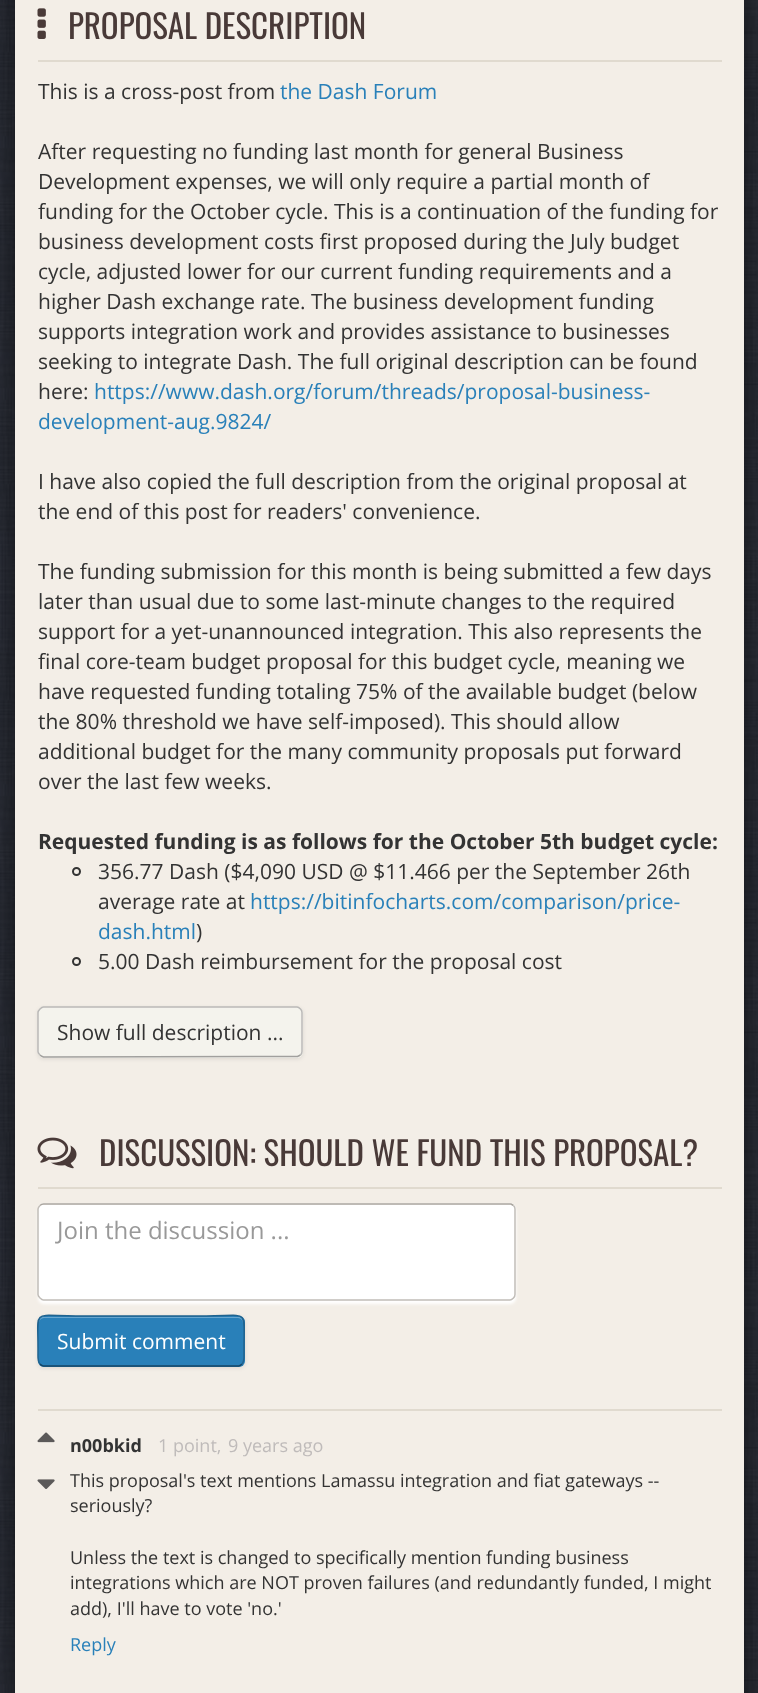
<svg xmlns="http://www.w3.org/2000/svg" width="758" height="1693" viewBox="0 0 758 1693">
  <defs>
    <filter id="blur1" x="-50%" y="-200%" width="200%" height="500%"><feGaussianBlur stdDeviation="30"/></filter>
    <filter id="blur2" x="-50%" y="-200%" width="200%" height="500%"><feGaussianBlur stdDeviation="2"/></filter>
    <filter id="blur3" x="-50%" y="-200%" width="200%" height="500%"><feGaussianBlur stdDeviation="1.5"/></filter>
  </defs>
  <rect width="100%" height="100%" fill="#ffffff"/>
  <image x="0" y="0" width="758" height="1693" href="img1.png"/>
  <rect x="12" y="-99" width="735" height="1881" rx="9" fill="#000000" fill-opacity="0.8" filter="url(#blur1)"/>
  <rect x="15" y="0" width="729" height="1693" fill="#f3eee7"/>
  <rect x="38" y="60" width="684" height="2" fill="#e0dacf"/>
  <image x="37" y="8" width="9" height="31" href="img2.png"/>
  <text x="68" y="39" font-family="Oswald" font-size="33" fill="#493a38">PROPOSAL DESCRIPTION</text>
  <text x="38" y="99" font-family="Open Sans" font-size="21" fill="#333333">This is a cross-post from</text>
  <text x="280" y="99" font-family="Open Sans" font-size="21" fill="#2980b9">the Dash Forum</text>
  <text x="38" y="159" font-family="Open Sans" font-size="21" fill="#333333">After requesting no funding last month for general Business</text>
  <text x="38" y="189" font-family="Open Sans" font-size="21" fill="#333333">Development expenses, we will only require a partial month of</text>
  <text x="38" y="219" font-family="Open Sans" font-size="21" fill="#333333">funding for the October cycle. This is a continuation of the funding for</text>
  <text x="38" y="249" font-family="Open Sans" font-size="21" fill="#333333">business development costs first proposed during the July budget</text>
  <text x="38" y="279" font-family="Open Sans" font-size="21" fill="#333333">cycle, adjusted lower for our current funding requirements and a</text>
  <text x="38" y="309" font-family="Open Sans" font-size="21" fill="#333333">higher Dash exchange rate. The business development funding</text>
  <text x="38" y="339" font-family="Open Sans" font-size="21" fill="#333333">supports integration work and provides assistance to businesses</text>
  <text x="38" y="369" font-family="Open Sans" font-size="21" fill="#333333">seeking to integrate Dash. The full original description can be found</text>
  <text x="38" y="399" font-family="Open Sans" font-size="21" fill="#333333">here:</text>
  <text x="94" y="399" font-family="Open Sans" font-size="21" fill="#2980b9">https://www.dash.org/forum/threads/proposal-business-</text>
  <text x="38" y="429" font-family="Open Sans" font-size="21" fill="#2980b9">development-aug.9824/</text>
  <text x="38" y="489" font-family="Open Sans" font-size="21" fill="#333333">I have also copied the full description from the original proposal at</text>
  <text x="38" y="519" font-family="Open Sans" font-size="21" fill="#333333">the end of this post for readers' convenience.</text>
  <text x="38" y="579" font-family="Open Sans" font-size="21" fill="#333333">The funding submission for this month is being submitted a few days</text>
  <text x="38" y="609" font-family="Open Sans" font-size="21" fill="#333333">later than usual due to some last-minute changes to the required</text>
  <text x="38" y="639" font-family="Open Sans" font-size="21" fill="#333333">support for a yet-unannounced integration. This also represents the</text>
  <text x="38" y="669" font-family="Open Sans" font-size="21" fill="#333333">final core-team budget proposal for this budget cycle, meaning we</text>
  <text x="38" y="699" font-family="Open Sans" font-size="21" fill="#333333">have requested funding totaling 75% of the available budget (below</text>
  <text x="38" y="729" font-family="Open Sans" font-size="21" fill="#333333">the 80% threshold we have self-imposed). This should allow</text>
  <text x="38" y="759" font-family="Open Sans" font-size="21" fill="#333333">additional budget for the many community proposals put forward</text>
  <text x="38" y="789" font-family="Open Sans" font-size="21" fill="#333333">over the last few weeks.</text>
  <text x="38" y="849" font-family="Open Sans" font-size="21" font-weight="bold" fill="#333333">Requested funding is as follows for the October 5th budget cycle:</text>
  <circle cx="76.5" cy="871.5" r="3.5" fill="none" stroke="#333333" stroke-width="2"/>
  <text x="98" y="879" font-family="Open Sans" font-size="21" fill="#333333">356.77 Dash ($4,090 USD @ $11.466 per the September 26th</text>
  <text x="98" y="909" font-family="Open Sans" font-size="21" fill="#333333">average rate at</text>
  <text x="250" y="909" font-family="Open Sans" font-size="21" fill="#2980b9">https://bitinfocharts.com/comparison/price-</text>
  <text x="98" y="939" font-family="Open Sans" font-size="21" fill="#2980b9">dash.html</text>
  <text x="196" y="939" font-family="Open Sans" font-size="21" fill="#333333">)</text>
  <circle cx="76.5" cy="961.5" r="3.5" fill="none" stroke="#333333" stroke-width="2"/>
  <text x="98" y="969" font-family="Open Sans" font-size="21" fill="#333333">5.00 Dash reimbursement for the proposal cost</text>
  <rect x="38" y="1008" width="265" height="51" rx="6" fill="#000000" fill-opacity="0.1" filter="url(#blur2)"/>
  <rect x="38" y="1007" width="265" height="51" rx="6" fill="#f4f3ed"/>
  <path d="M300.5 1055L297.5 1056.5L43.5 1057C42 1056.5 41 1056 40 1055" fill="none" stroke="#a1a09e" stroke-width="1.5"/>
  <path d="M40 1055C39 1054 38 1053 38 1051.5V1012.5C38 1011 39 1010 40 1009C41 1008 42 1007 43.5 1007H297C298.5 1007 299.5 1008 300.5 1009C301.5 1010 302 1011 302 1012.5V1051.5C302 1053 301.5 1054 300.5 1055" fill="none" stroke="#bab9b8" stroke-width="1.5"/>
  <text x="57" y="1040" font-family="Open Sans" font-size="21" fill="#333333">Show full description ...</text>
  <rect x="38" y="1187" width="684" height="2" fill="#e0dacf"/>
  <image x="37" y="1137" width="40" height="32" href="img3.png"/>
  <text x="99" y="1166" font-family="Oswald" font-size="33" fill="#493a38">DISCUSSION: SHOULD WE FUND THIS PROPOSAL?</text>
  <rect x="38" y="1206" width="478" height="98" rx="6" fill="#ffffff" filter="url(#blur3)"/>
  <rect x="38" y="1203" width="478" height="98" rx="6" fill="#ffffff"/>
  <path d="M40 1205.5C41 1204.5 42 1204 43.5 1204H511L513.5 1205.5" fill="none" stroke="#a9a49d" stroke-width="1.5"/>
  <path d="M513.5 1205.5C514.5 1206.5 515 1207.5 515 1209V1294.5C515 1296 514.5 1297 513.5 1298C512.5 1299 511.5 1300 510 1300H43.5C42 1300 41 1299 40 1298C39 1297 38 1296 38 1294.5V1209C38 1207.5 39 1206.5 40 1205.5" fill="none" stroke="#c1bdb8" stroke-width="1.5"/>
  <text x="57" y="1239" font-family="Open Sans" font-size="24" fill="#999999">Join the discussion ...</text>
  <rect x="38" y="1317" width="207" height="51" rx="6" fill="#000000" fill-opacity="0.1" filter="url(#blur2)"/>
  <rect x="38" y="1316" width="207" height="51" rx="6" fill="#2980b9"/>
  <path d="M44 1318H238C241 1318 243 1321 243 1323V1322C243 1319 241 1317 238 1317H44C41 1317 39 1319 39 1322V1323C39 1321 41 1318 44 1318Z" fill="#69a6ce"/>
  <path d="M242 1364C241 1365 240 1366 238.5 1366H43.5C42 1366 41 1365 40 1364" fill="none" stroke="#164666" stroke-width="1.5"/>
  <path d="M40 1364C37.5 1361.5 38 1357 38 1354V1347.5C38 1308 32 1316 76 1316H206C250 1316 244 1308 244 1347.5V1354C244 1357 244.5 1361.5 242 1364" fill="none" stroke="#20638f" stroke-width="1.5"/>
  <text x="57" y="1349" font-family="Open Sans" font-size="21" fill="#ffffff">Submit comment</text>
  <rect x="38" y="1409" width="684" height="2" fill="#e0dacf"/>
  <image x="37" y="1432" width="18" height="11" href="img4.png"/>
  <image x="37" y="1479" width="18" height="10" href="img5.png"/>
  <text x="70" y="1452" font-family="Open Sans" font-size="18" font-weight="bold" fill="#333333">n00bkid</text>
  <text x="158" y="1452" font-family="Open Sans" font-size="18" fill="#bfbbba">1 point,</text>
  <text x="228" y="1452" font-family="Open Sans" font-size="18" fill="#bfbbba">9 years ago</text>
  <text x="70" y="1487" font-family="Open Sans" font-size="18" fill="#333333">This proposal's text mentions Lamassu integration and fiat gateways --</text>
  <text x="70" y="1512" font-family="Open Sans" font-size="18" fill="#333333">seriously?</text>
  <text x="70" y="1564" font-family="Open Sans" font-size="18" fill="#333333">Unless the text is changed to specifically mention funding business</text>
  <text x="70" y="1589" font-family="Open Sans" font-size="18" fill="#333333">integrations which are NOT proven failures (and redundantly funded, I might</text>
  <text x="70" y="1615" font-family="Open Sans" font-size="18" fill="#333333">add), I'll have to vote 'no.'</text>
  <text x="70" y="1651" font-family="Open Sans" font-size="18" fill="#2980b9">Reply</text>
</svg>
